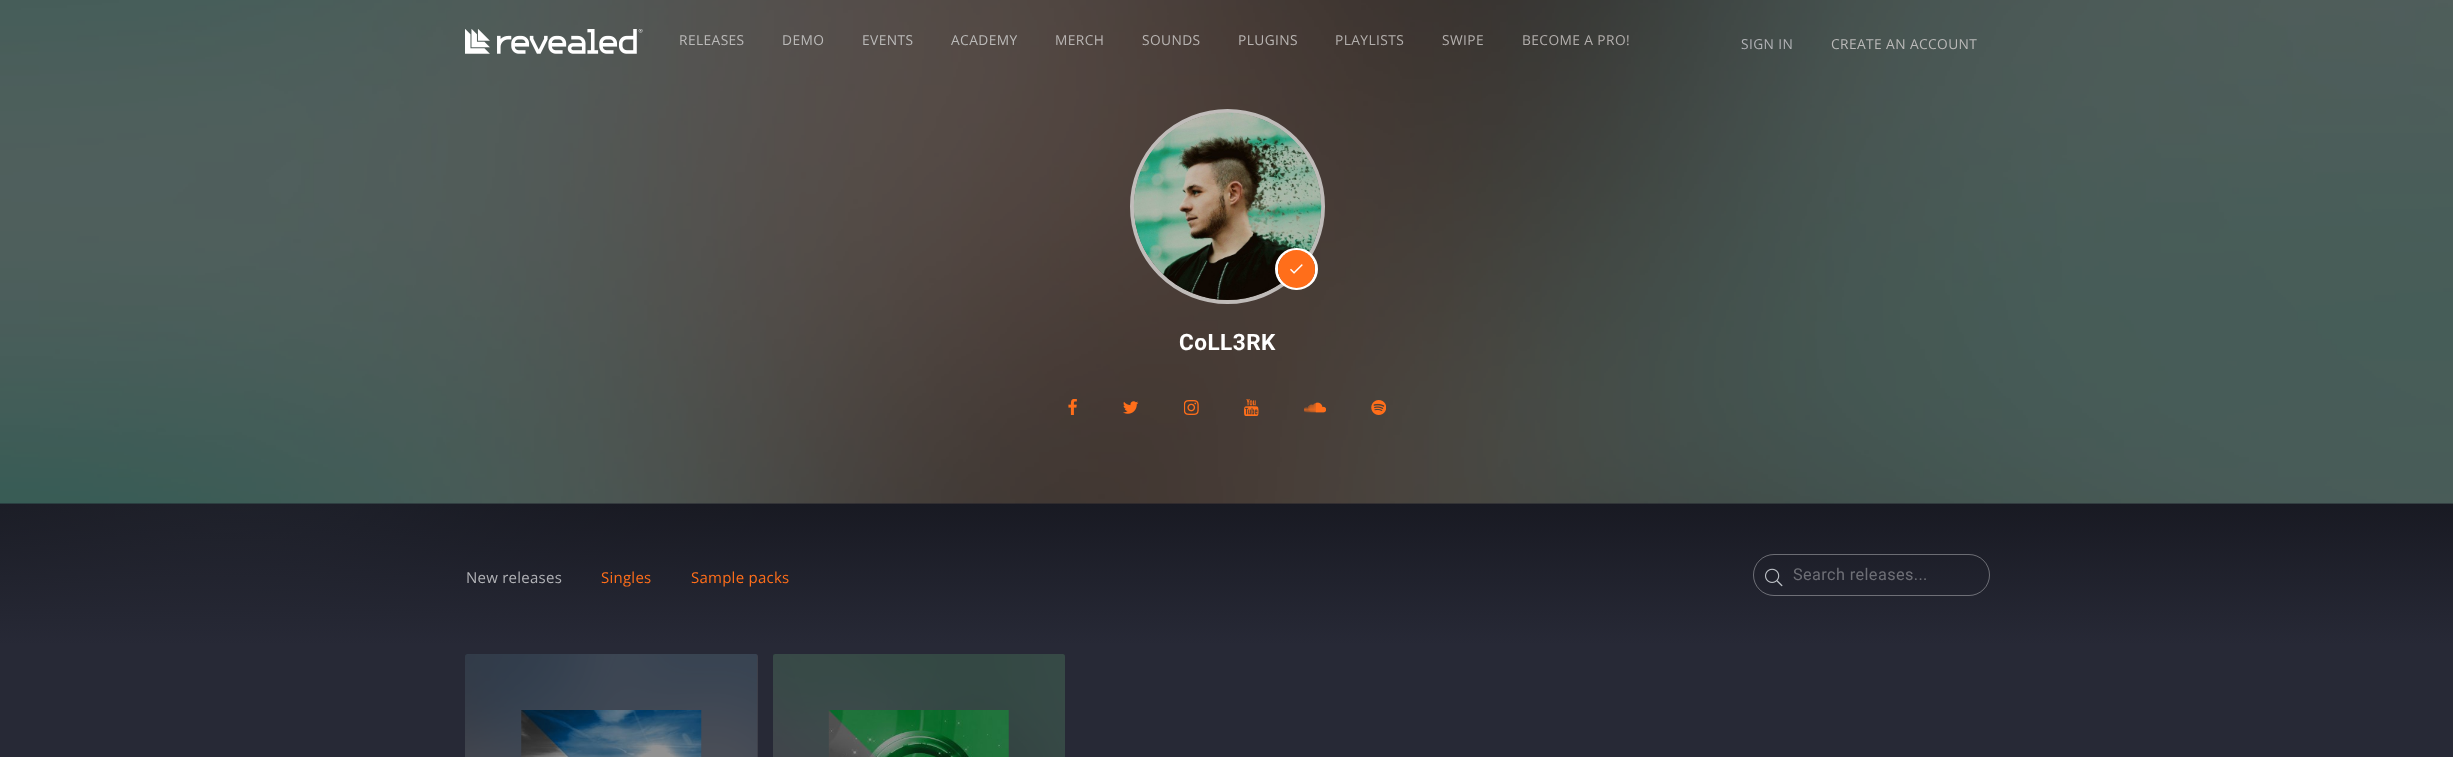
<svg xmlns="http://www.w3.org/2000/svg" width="2453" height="757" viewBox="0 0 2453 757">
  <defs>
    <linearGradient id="g1" gradientUnits="userSpaceOnUse" x1="1227" y1="270" x2="1227" y2="645"><stop offset="0" stop-color="#272936" stop-opacity="0"/><stop offset="1" stop-color="#272936"/></linearGradient>
  </defs>
  <rect width="100%" height="100%" fill="#272936"/>
  <rect x="0" y="0" width="2453" height="504" fill="#1a1c27"/>
  <image x="0" y="0" width="2453" height="504" href="img2.png"/>
  <image x="465" y="29" width="178" height="25" href="img1.png"/>
  <text x="679" y="45" font-family="Open Sans" font-size="13.75" letter-spacing="0.4" fill="#bbbab9">RELEASES</text>
  <text x="782" y="45" font-family="Open Sans" font-size="13.75" letter-spacing="0.4" fill="#bbbab9">DEMO</text>
  <text x="862" y="45" font-family="Open Sans" font-size="13.75" letter-spacing="0.4" fill="#bbbab9">EVENTS</text>
  <text x="951" y="45" font-family="Open Sans" font-size="13.75" letter-spacing="0.4" fill="#bbbab9">ACADEMY</text>
  <text x="1055" y="45" font-family="Open Sans" font-size="13.75" letter-spacing="0.4" fill="#b9b5b3">MERCH</text>
  <text x="1142" y="45" font-family="Open Sans" font-size="13.75" letter-spacing="0.4" fill="#b9b5b3">SOUNDS</text>
  <text x="1238" y="45" font-family="Open Sans" font-size="13.75" letter-spacing="0.4" fill="#b9b5b3">PLUGINS</text>
  <text x="1335" y="45" font-family="Open Sans" font-size="13.75" letter-spacing="0.4" fill="#b3afad">PLAYLISTS</text>
  <text x="1442" y="45" font-family="Open Sans" font-size="13.75" letter-spacing="0.4" fill="#b3afad">SWIPE</text>
  <text x="1522" y="45" font-family="Open Sans" font-size="13.75" letter-spacing="0.4" fill="#b3afad">BECOME A PRO!</text>
  <text x="1741" y="49" font-family="Open Sans" font-size="13.75" letter-spacing="0.4" fill="#b1b2b6">SIGN IN</text>
  <text x="1831" y="49" font-family="Open Sans" font-size="13.75" letter-spacing="0.4" fill="#bbbab9">CREATE AN ACCOUNT</text>
  <circle cx="1227.5" cy="206.5" r="95.5" fill="none" stroke="#ffffff" stroke-opacity="0.65" stroke-width="4"/>
  <image x="1133" y="112" width="189" height="188" href="img3.png"/>
  <rect x="1276.5" y="249.5" width="40" height="39" rx="19.5" fill="none" stroke="#ffffff" stroke-width="3"/>
  <rect x="1278" y="250" width="37" height="38" rx="18.5" fill="#ff6e1a"/>
  <image x="1290" y="264" width="13" height="10" href="img4.png"/>
  <text x="1179" y="350" font-family="Roboto" font-size="22.5" font-weight="bold" letter-spacing="0.5" fill="#ffffff">CoLL3RK</text>
  <image x="1068" y="399" width="9" height="16" href="img5.png"/>
  <image x="1123" y="401" width="16" height="13" href="img6.png"/>
  <image x="1184" y="400" width="15" height="15" href="img7.png"/>
  <image x="1244" y="399" width="15" height="17" href="img8.png"/>
  <image x="1304" y="402" width="22" height="11" href="img9.png"/>
  <image x="1371" y="400" width="15" height="15" href="img10.png"/>
  <rect x="0" y="504" width="2453" height="139" fill="#000002"/>
  <image x="0" y="504" width="752" height="139" href="img16.png"/>
  <rect x="0" y="504" width="2453" height="139" fill="url(#g1)"/>
  <text x="466" y="583" font-family="Open Sans" font-size="15" letter-spacing="0.25" fill="#b1b2b6">New releases</text>
  <text x="601" y="583" font-family="Open Sans" font-size="15" letter-spacing="0.25" fill="#ff6e1a">Singles</text>
  <text x="691" y="583" font-family="Open Sans" font-size="15" letter-spacing="0.25" fill="#ff6e1a">Sample packs</text>
  <rect x="1753.5" y="554.5" width="236" height="41" rx="20.5" fill="none" stroke="#ffffff" stroke-opacity="0.35"/>
  <image x="1765" y="568" width="18" height="19" href="img11.png"/>
  <text x="1793" y="580" font-family="Roboto" font-size="16.25" letter-spacing="0.4" fill="#6e6f76">Search releases...</text>
  <rect x="465" y="654" width="293" height="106" rx="2.5" fill="#3e404a"/>
  <image x="465" y="654" width="292" height="103" href="img12.png"/>
  <image x="521" y="710" width="181" height="47" href="img13.png"/>
  <rect x="773" y="654" width="292" height="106" rx="2.5" fill="#3e404a"/>
  <image x="773" y="654" width="292" height="103" href="img14.png"/>
  <image x="828" y="710" width="181" height="47" href="img15.png"/>
</svg>
